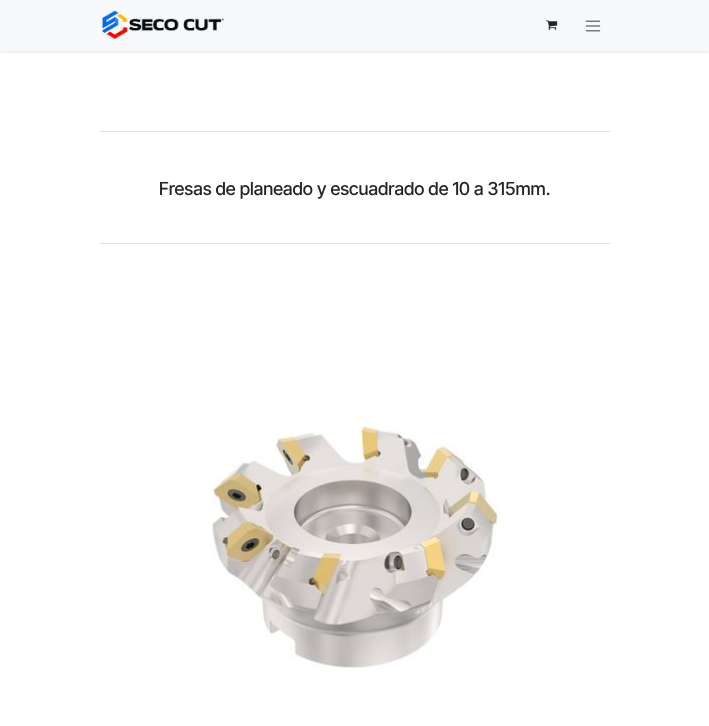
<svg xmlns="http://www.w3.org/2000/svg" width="709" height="726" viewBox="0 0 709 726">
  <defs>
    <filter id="blur1" x="-50%" y="-200%" width="200%" height="500%"><feGaussianBlur stdDeviation="1.5"/></filter>
  </defs>
  <rect width="100%" height="100%" fill="#ffffff"/>
  <rect x="0" y="1" width="709" height="51" fill="#000000" fill-opacity="0.1" filter="url(#blur1)"/>
  <rect x="0" y="0" width="709" height="51" fill="#f8f9fa"/>
  <image x="102" y="10" width="123" height="29" href="img1.png"/>
  <image x="546" y="20" width="12" height="10" href="img2.png"/>
  <image x="585" y="20" width="16" height="12" href="img3.png"/>
  <rect x="100" y="131" width="510" height="1" fill="#dededf"/>
  <text x="159" y="195" font-family="Inter Tight" font-size="18" font-weight="500" fill="#212529">Fresas de planeado y escuadrado de 10 a 315mm.</text>
  <rect x="100" y="243" width="510" height="1" fill="#dededf"/>
  <image x="211" y="417" width="287" height="251" href="img4.png"/>
</svg>
